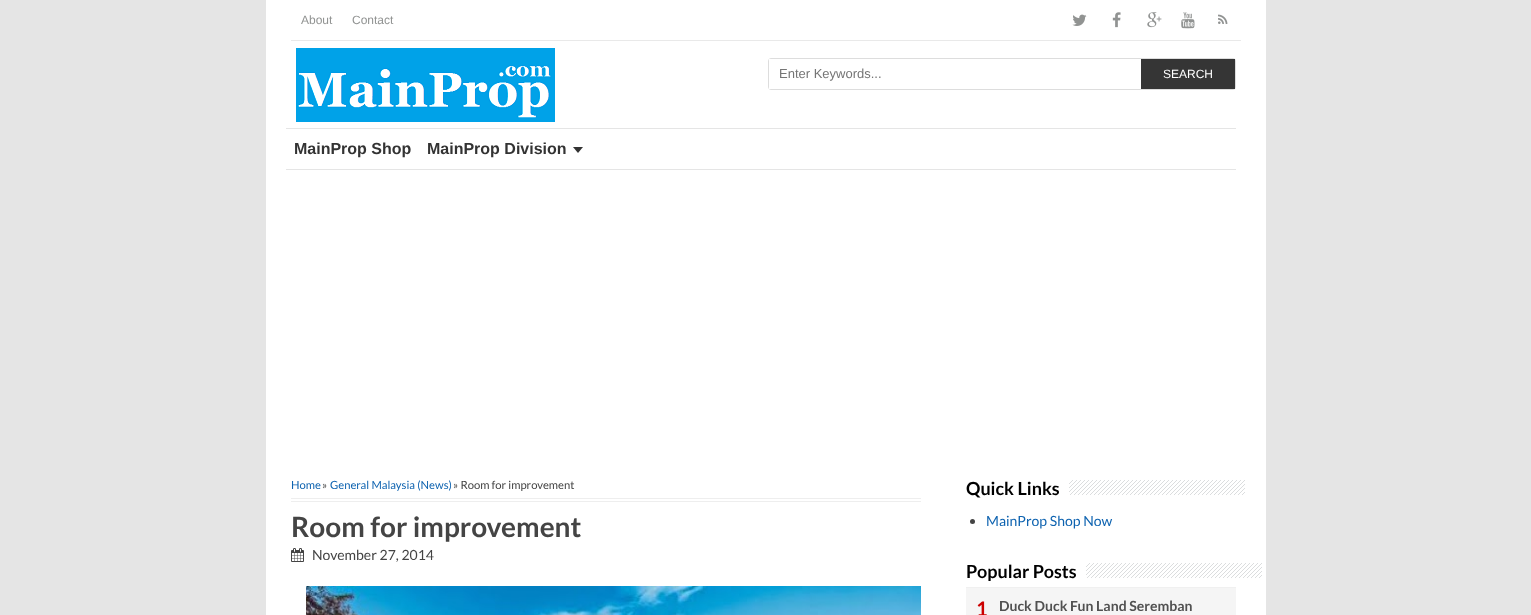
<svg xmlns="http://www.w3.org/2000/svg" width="1531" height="615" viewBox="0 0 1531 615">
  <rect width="100%" height="100%" fill="#e5e5e5"/>
  <rect x="266" y="0" width="1000" height="615" fill="#ffffff"/>
  <rect x="291" y="40" width="950" height="1" fill="#e9e9e9"/>
  <text x="301" y="24" font-family="Liberation Sans" font-size="12" fill="#919392">About</text>
  <text x="352" y="24" font-family="Liberation Sans" font-size="12" fill="#919392">Contact</text>
  <image x="1072" y="14" width="15" height="12" href="img1.png"/>
  <image x="1112" y="12" width="9" height="16" href="img2.png"/>
  <image x="1147" y="12" width="15" height="16" href="img3.png"/>
  <image x="1181" y="12" width="14" height="17" href="img4.png"/>
  <image x="1218" y="14" width="10" height="10" href="img5.png"/>
  <image x="296" y="48" width="259" height="74" href="img6.png"/>
  <rect x="768.5" y="58.5" width="467" height="31" rx="2.5" fill="none" stroke="#dddddd"/>
  <rect x="769" y="59" width="2" height="30" fill="#ffffff"/>
  <text x="779" y="78" font-family="Liberation Sans" font-size="13" fill="#757575">Enter Keywords...</text>
  <rect x="1141" y="59" width="94" height="30" fill="#353535"/>
  <text x="1163" y="78" font-family="Liberation Sans" font-size="12" fill="#ffffff">SEARCH</text>
  <rect x="286" y="128" width="950" height="1" fill="#e5e5e5"/>
  <rect x="286" y="169" width="950" height="1" fill="#e5e5e5"/>
  <text x="294" y="154" font-family="Liberation Sans" font-size="16" font-weight="bold" fill="#333333">MainProp Shop</text>
  <text x="427" y="154" font-family="Liberation Sans" font-size="16" font-weight="bold" fill="#333333">MainProp Division</text>
  <path d="M573 147H583L578 153Z" fill="#333333"/>
  <rect x="291" y="498" width="630" height="1" fill="#eeeeee"/>
  <rect x="291" y="501" width="630" height="1" fill="#eeeeee"/>
  <text x="291" y="489" font-family="Lato" font-size="11.25" fill="#0e63b0">Home</text>
  <text x="322" y="489" font-family="Lato" font-size="11.25" fill="#444444">»</text>
  <text x="330" y="489" font-family="Lato" font-size="11.25" fill="#0e63b0">General Malaysia (News)</text>
  <text x="453" y="489" font-family="Lato" font-size="11.25" fill="#444444">» Room for improvement</text>
  <text x="291" y="537" font-family="Lato" font-size="28" font-weight="bold" fill="#444444">Room for improvement</text>
  <image x="291" y="548" width="13" height="14" href="img7.png"/>
  <text x="312" y="560" font-family="Lato" font-size="14" fill="#444444">November 27, 2014</text>
  <image x="306" y="586" width="615" height="29" href="img8.png"/>
  <text x="966" y="495" font-family="Lato" font-size="18" font-weight="bold" fill="#000000">Quick Links</text>
  <image x="1069" y="480" width="176" height="15" href="img9.png"/>
  <circle cx="972.5" cy="521.5" r="2.5" fill="#444444"/>
  <text x="986" y="526" font-family="Lato" font-size="14" fill="#0e63b0">MainProp Shop Now</text>
  <text x="966" y="578" font-family="Lato" font-size="18" font-weight="bold" fill="#000000">Popular Posts</text>
  <image x="1086" y="563" width="176" height="15" href="img9.png"/>
  <rect x="966" y="588" width="270" height="27" fill="#f5f5f5"/>
  <rect x="966" y="587" width="270" height="1" fill="#f0f0f0"/>
  <text x="976" y="616" font-family="Lato" font-size="20" font-weight="bold" fill="#cc0000">1</text>
  <text x="999" y="611" font-family="Lato" font-size="14" font-weight="bold" fill="#515151">Duck Duck Fun Land Seremban</text>
</svg>
